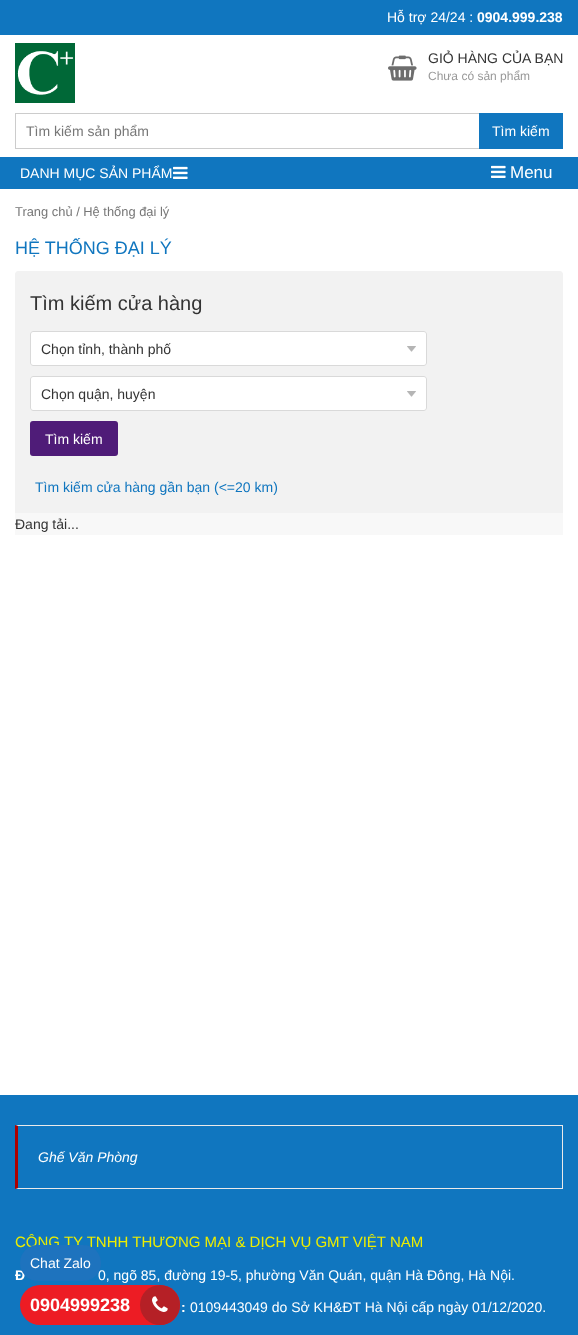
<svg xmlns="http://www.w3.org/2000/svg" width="578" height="1335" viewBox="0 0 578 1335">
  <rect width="100%" height="100%" fill="#ffffff"/>
  <rect x="0" y="0" width="578" height="35" fill="#1076bf"/>
  <text x="387" y="22" font-family="Liberation Sans" font-size="14" fill="#ffffff">Hỗ trợ 24/24 :</text>
  <text x="477" y="22" font-family="Liberation Sans" font-size="14" font-weight="bold" fill="#ffffff">0904.999.238</text>
  <image x="15" y="43" width="60" height="60" href="img1.png"/>
  <image x="388" y="55" width="29" height="26" href="img2.png"/>
  <text x="428" y="63" font-family="Liberation Sans" font-size="14" fill="#333333">GIỎ HÀNG CỦA BẠN</text>
  <text x="428" y="80" font-family="Liberation Sans" font-size="12" fill="#999999">Chưa có sản phẩm</text>
  <rect x="15" y="113" width="464" height="1" fill="#cccccc"/>
  <rect x="15" y="148" width="464" height="1" fill="#cccccc"/>
  <rect x="15" y="113" width="1" height="36" fill="#cccccc"/>
  <text x="26" y="136" font-family="Liberation Sans" font-size="14" fill="#777777">Tìm kiếm sản phẩm</text>
  <rect x="479" y="113" width="84" height="36" fill="#1076bf"/>
  <text x="492" y="136" font-family="Liberation Sans" font-size="14" fill="#ffffff">Tìm kiếm</text>
  <rect x="0" y="157" width="578" height="32" fill="#1076bf"/>
  <text x="20" y="178" font-family="Liberation Sans" font-size="14" fill="#ffffff">DANH MỤC SẢN PHẨM</text>
  <image x="173" y="166" width="15" height="13" href="img3.png"/>
  <image x="491" y="165" width="15" height="13" href="img3.png"/>
  <text x="510" y="178" font-family="Liberation Sans" font-size="17" fill="#ffffff">Menu</text>
  <text x="15" y="216" font-family="Liberation Sans" font-size="12.9" fill="#777777">Trang chủ / Hệ thống đại lý</text>
  <text x="15" y="254" font-family="Liberation Sans" font-size="18" fill="#1076bf">HỆ THỐNG ĐẠI LÝ</text>
  <path d="M18 271H560C561.5 271 563 272.5 563 274V513H15V274C15 272.5 16.5 271 18 271Z" fill="#f2f2f2"/>
  <text x="30" y="310" font-family="Liberation Sans" font-size="20" fill="#333333">Tìm kiếm cửa hàng</text>
  <rect x="30" y="331" width="397" height="35" rx="3" fill="#ffffff"/>
  <image x="407" y="346" width="9" height="6" href="img4.png"/>
  <rect x="30.5" y="331.5" width="396" height="34" rx="2.5" fill="none" stroke="#d9d9d9"/>
  <text x="41" y="354" font-family="Liberation Sans" font-size="14" fill="#333333">Chọn tỉnh, thành phố</text>
  <rect x="30" y="376" width="397" height="35" rx="3" fill="#ffffff"/>
  <image x="407" y="391" width="9" height="6" href="img4.png"/>
  <rect x="30.5" y="376.5" width="396" height="34" rx="2.5" fill="none" stroke="#d9d9d9"/>
  <text x="41" y="399" font-family="Liberation Sans" font-size="14" fill="#333333">Chọn quận, huyện</text>
  <rect x="30" y="421" width="88" height="35" rx="3" fill="#4f1c78"/>
  <text x="45" y="444" font-family="Liberation Sans" font-size="14" fill="#ffffff">Tìm kiếm</text>
  <text x="35" y="492" font-family="Liberation Sans" font-size="14" fill="#1076bf">Tìm kiếm cửa hàng gần bạn (&lt;=20 km)</text>
  <rect x="15" y="513" width="548" height="22" fill="#f8f8f8"/>
  <text x="15" y="529" font-family="Liberation Sans" font-size="14" fill="#333333">Đang tải...</text>
  <rect x="0" y="1095" width="578" height="240" fill="#1076bf"/>
  <path d="M15 1125H563L562 1126H18Z" fill="#eaeaea"/>
  <rect x="562" y="1125" width="1" height="64" fill="#eaeaea"/>
  <path d="M563 1189H15L18 1188H562Z" fill="#eaeaea"/>
  <path d="M15 1189V1125L18 1126V1188Z" fill="#ae0000"/>
  <text x="38" y="1162" font-family="Liberation Sans" font-size="14" font-style="italic" fill="#ffffff">Ghế Văn Phòng</text>
  <text x="15" y="1247" font-family="Liberation Sans" font-size="15" fill="#eded00">CÔNG TY TNHH THƯƠNG MẠI &amp; DỊCH VỤ GMT VIỆT NAM</text>
  <text x="15" y="1280" font-family="Liberation Sans" font-size="14" font-weight="bold" fill="#ffffff">Đ</text>
  <text x="98" y="1280" font-family="Liberation Sans" font-size="14" fill="#ffffff">0, ngõ 85, đường 19-5, phường Văn Quán, quận Hà Đông, Hà Nội.</text>
  <text x="181" y="1312" font-family="Liberation Sans" font-size="14" font-weight="bold" fill="#ffffff">:</text>
  <text x="190" y="1312" font-family="Liberation Sans" font-size="14" fill="#ffffff">0109443049 do Sở KH&amp;ĐT Hà Nội cấp ngày 01/12/2020.</text>
  <rect x="20" y="1245" width="81" height="36" rx="18" fill="#1e73be"/>
  <text x="30" y="1268" font-family="Liberation Sans" font-size="14" fill="#ffffff">Chat Zalo</text>
  <rect x="20" y="1285" width="160" height="40" rx="20" fill="#ed1c24"/>
  <text x="30" y="1311" font-family="Liberation Sans" font-size="18" font-weight="bold" fill="#ffffff">0904999238</text>
  <circle cx="160" cy="1305" r="20" fill="#b52026"/>
  <image x="152" y="1296" width="16" height="16" href="img5.png"/>
</svg>
